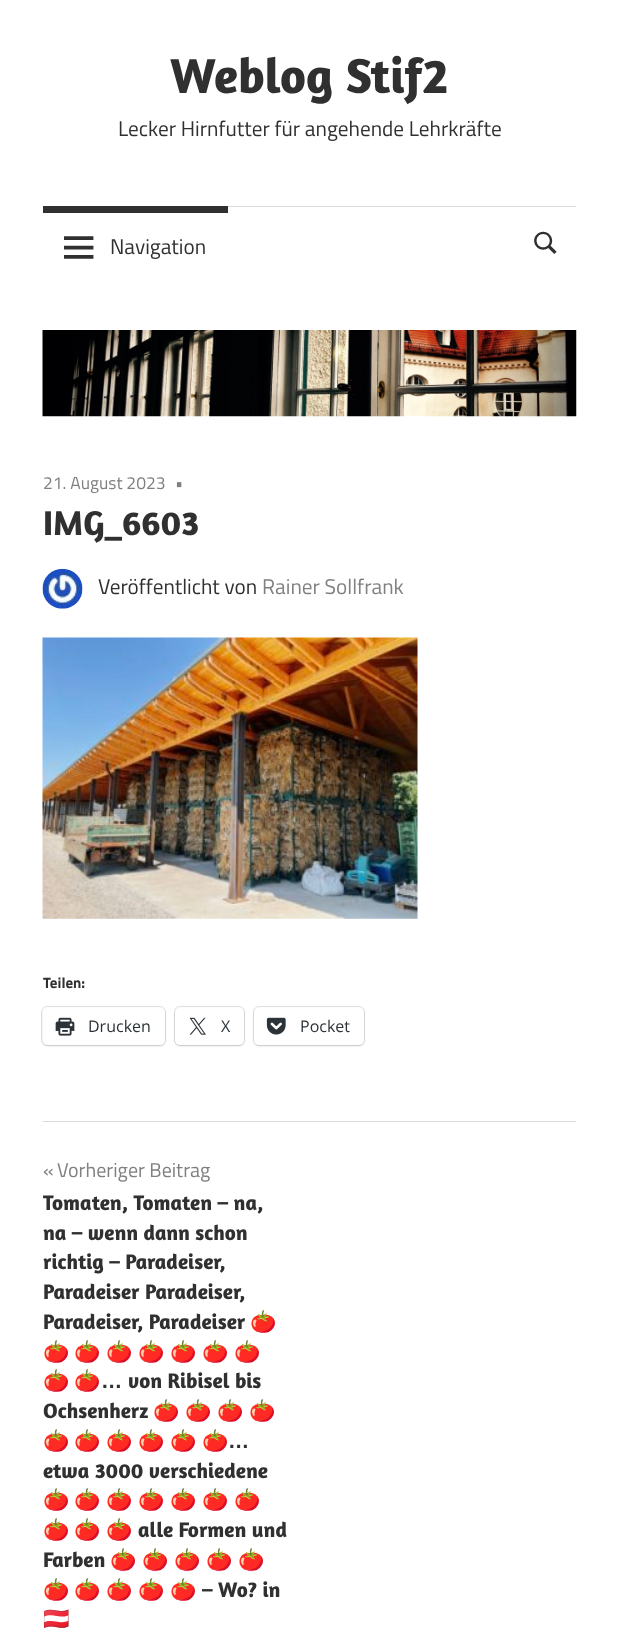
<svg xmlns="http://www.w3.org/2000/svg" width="618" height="1641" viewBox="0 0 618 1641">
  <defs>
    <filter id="blur1" x="-50%" y="-200%" width="200%" height="500%"><feGaussianBlur stdDeviation="1"/></filter>
  </defs>
  <rect width="100%" height="100%" fill="#ffffff"/>
  <text x="170" y="93" font-family="Amaranth" font-size="50" font-weight="bold" fill="#303030">Weblog Stif2</text>
  <text x="118" y="136" font-family="Titillium Web" font-size="21.25" fill="#303030">Lecker Hirnfutter für angehende Lehrkräfte</text>
  <rect x="228" y="206" width="348" height="1" fill="#d9d9d9"/>
  <rect x="43" y="206" width="185" height="7" fill="#303030"/>
  <image x="64" y="236" width="30" height="23" href="img1.png"/>
  <text x="110" y="254" font-family="Titillium Web" font-size="21.25" fill="#303030">Navigation</text>
  <image x="534" y="231" width="23" height="23" href="img2.png"/>
  <image x="42" y="330" width="535" height="87" href="img3.png"/>
  <text x="43" y="489" font-family="Titillium Web" font-size="17.5" fill="#808080">21. August 2023</text>
  <text x="175" y="489" font-family="Titillium Web" font-size="17.5" fill="#808080">•</text>
  <text x="43" y="535" font-family="Amaranth" font-size="35" font-weight="bold" fill="#303030">IMG_6603</text>
  <image x="42" y="568" width="41" height="41" href="img4.png"/>
  <text x="98" y="594" font-family="Titillium Web" font-size="21.25" fill="#303030">Veröffentlicht von</text>
  <text x="262" y="594" font-family="Titillium Web" font-size="21.25" fill="#808080">Rainer Sollfrank</text>
  <image x="42" y="637" width="376" height="282" href="img5.png"/>
  <text x="43" y="988" font-family="Titillium Web" font-size="15" font-weight="bold" fill="#303030">Teilen:</text>
  <rect x="41.5" y="1006.5" width="124" height="39" rx="5.5" fill="none" stroke="#e0e0e0"/>
  <rect x="43" y="1009" width="122" height="37" rx="5" fill="#000000" fill-opacity="0.12" filter="url(#blur1)"/>
  <rect x="43" y="1008" width="122" height="37" rx="5" fill="#ffffff"/>
  <image x="55" y="1017" width="20" height="19" href="img6.png"/>
  <text x="88" y="1032" font-family="Open Sans" font-size="16" fill="#2c3338">Drucken</text>
  <rect x="174.5" y="1006.5" width="70" height="39" rx="5.5" fill="none" stroke="#e0e0e0"/>
  <rect x="175" y="1009" width="69" height="37" rx="5" fill="#000000" fill-opacity="0.12" filter="url(#blur1)"/>
  <rect x="175" y="1008" width="69" height="37" rx="5" fill="#ffffff"/>
  <image x="189" y="1017" width="17" height="18" href="img7.png"/>
  <text x="221" y="1032" font-family="Open Sans" font-size="16" fill="#2c3338">X</text>
  <rect x="253.5" y="1006.5" width="111" height="39" rx="5.5" fill="none" stroke="#e0e0e0"/>
  <rect x="254" y="1009" width="110" height="37" rx="5" fill="#000000" fill-opacity="0.12" filter="url(#blur1)"/>
  <rect x="254" y="1008" width="110" height="37" rx="5" fill="#ffffff"/>
  <image x="266" y="1017" width="20" height="18" href="img8.png"/>
  <text x="300" y="1032" font-family="Open Sans" font-size="16" fill="#2c3338">Pocket</text>
  <rect x="43" y="1121" width="533" height="1" fill="#d9d9d9"/>
  <text x="43" y="1177" font-family="Titillium Web" font-size="20" fill="#808080">«</text>
  <text x="57" y="1177" font-family="Titillium Web" font-size="20" fill="#808080">Vorheriger Beitrag</text>
  <text x="43" y="1210" font-family="Amaranth" font-size="21.25" font-weight="bold" fill="#303030">Tomaten, Tomaten – na,</text>
  <text x="43" y="1240" font-family="Amaranth" font-size="21.25" font-weight="bold" fill="#303030">na – wenn dann schon</text>
  <text x="43" y="1269" font-family="Amaranth" font-size="21.25" font-weight="bold" fill="#303030">richtig – Paradeiser,</text>
  <text x="43" y="1299" font-family="Amaranth" font-size="21.25" font-weight="bold" fill="#303030">Paradeiser Paradeiser,</text>
  <text x="43" y="1329" font-family="Amaranth" font-size="21.25" font-weight="bold" fill="#303030">Paradeiser, Paradeiser</text>
  <text x="250" y="1329" font-family="Noto Color Emoji" font-size="21.25" font-weight="bold" fill="#303030">🍅</text>
  <text x="43" y="1359" font-family="Noto Color Emoji" font-size="21.25" font-weight="bold" fill="#303030">🍅</text>
  <text x="74" y="1359" font-family="Noto Color Emoji" font-size="21.25" font-weight="bold" fill="#303030">🍅</text>
  <text x="106" y="1359" font-family="Noto Color Emoji" font-size="21.25" font-weight="bold" fill="#303030">🍅</text>
  <text x="138" y="1359" font-family="Noto Color Emoji" font-size="21.25" font-weight="bold" fill="#303030">🍅</text>
  <text x="170" y="1359" font-family="Noto Color Emoji" font-size="21.25" font-weight="bold" fill="#303030">🍅</text>
  <text x="202" y="1359" font-family="Noto Color Emoji" font-size="21.25" font-weight="bold" fill="#303030">🍅</text>
  <text x="234" y="1359" font-family="Noto Color Emoji" font-size="21.25" font-weight="bold" fill="#303030">🍅</text>
  <text x="43" y="1388" font-family="Noto Color Emoji" font-size="21.25" font-weight="bold" fill="#303030">🍅</text>
  <text x="74" y="1388" font-family="Noto Color Emoji" font-size="21.25" font-weight="bold" fill="#303030">🍅</text>
  <text x="101" y="1388" font-family="Liberation Sans" font-size="21.25" font-weight="bold" fill="#303030">…</text>
  <text x="128" y="1388" font-family="Amaranth" font-size="21.25" font-weight="bold" fill="#303030">von Ribisel bis</text>
  <text x="43" y="1418" font-family="Amaranth" font-size="21.25" font-weight="bold" fill="#303030">Ochsenherz</text>
  <text x="153" y="1418" font-family="Noto Color Emoji" font-size="21.25" font-weight="bold" fill="#303030">🍅</text>
  <text x="185" y="1418" font-family="Noto Color Emoji" font-size="21.25" font-weight="bold" fill="#303030">🍅</text>
  <text x="217" y="1418" font-family="Noto Color Emoji" font-size="21.25" font-weight="bold" fill="#303030">🍅</text>
  <text x="249" y="1418" font-family="Noto Color Emoji" font-size="21.25" font-weight="bold" fill="#303030">🍅</text>
  <text x="43" y="1448" font-family="Noto Color Emoji" font-size="21.25" font-weight="bold" fill="#303030">🍅</text>
  <text x="74" y="1448" font-family="Noto Color Emoji" font-size="21.25" font-weight="bold" fill="#303030">🍅</text>
  <text x="106" y="1448" font-family="Noto Color Emoji" font-size="21.25" font-weight="bold" fill="#303030">🍅</text>
  <text x="138" y="1448" font-family="Noto Color Emoji" font-size="21.25" font-weight="bold" fill="#303030">🍅</text>
  <text x="170" y="1448" font-family="Noto Color Emoji" font-size="21.25" font-weight="bold" fill="#303030">🍅</text>
  <text x="202" y="1448" font-family="Noto Color Emoji" font-size="21.25" font-weight="bold" fill="#303030">🍅</text>
  <text x="228" y="1448" font-family="Liberation Sans" font-size="21.25" font-weight="bold" fill="#303030">…</text>
  <text x="43" y="1478" font-family="Amaranth" font-size="21.25" font-weight="bold" fill="#303030">etwa 3000 verschiedene</text>
  <text x="43" y="1507" font-family="Noto Color Emoji" font-size="21.25" font-weight="bold" fill="#303030">🍅</text>
  <text x="74" y="1507" font-family="Noto Color Emoji" font-size="21.25" font-weight="bold" fill="#303030">🍅</text>
  <text x="106" y="1507" font-family="Noto Color Emoji" font-size="21.25" font-weight="bold" fill="#303030">🍅</text>
  <text x="138" y="1507" font-family="Noto Color Emoji" font-size="21.25" font-weight="bold" fill="#303030">🍅</text>
  <text x="170" y="1507" font-family="Noto Color Emoji" font-size="21.25" font-weight="bold" fill="#303030">🍅</text>
  <text x="202" y="1507" font-family="Noto Color Emoji" font-size="21.25" font-weight="bold" fill="#303030">🍅</text>
  <text x="234" y="1507" font-family="Noto Color Emoji" font-size="21.25" font-weight="bold" fill="#303030">🍅</text>
  <text x="43" y="1537" font-family="Noto Color Emoji" font-size="21.25" font-weight="bold" fill="#303030">🍅</text>
  <text x="74" y="1537" font-family="Noto Color Emoji" font-size="21.25" font-weight="bold" fill="#303030">🍅</text>
  <text x="106" y="1537" font-family="Noto Color Emoji" font-size="21.25" font-weight="bold" fill="#303030">🍅</text>
  <text x="138" y="1537" font-family="Amaranth" font-size="21.25" font-weight="bold" fill="#303030">alle Formen und</text>
  <text x="43" y="1567" font-family="Amaranth" font-size="21.25" font-weight="bold" fill="#303030">Farben</text>
  <text x="110" y="1567" font-family="Noto Color Emoji" font-size="21.25" font-weight="bold" fill="#303030">🍅</text>
  <text x="142" y="1567" font-family="Noto Color Emoji" font-size="21.25" font-weight="bold" fill="#303030">🍅</text>
  <text x="174" y="1567" font-family="Noto Color Emoji" font-size="21.25" font-weight="bold" fill="#303030">🍅</text>
  <text x="206" y="1567" font-family="Noto Color Emoji" font-size="21.25" font-weight="bold" fill="#303030">🍅</text>
  <text x="238" y="1567" font-family="Noto Color Emoji" font-size="21.25" font-weight="bold" fill="#303030">🍅</text>
  <text x="43" y="1597" font-family="Noto Color Emoji" font-size="21.25" font-weight="bold" fill="#303030">🍅</text>
  <text x="74" y="1597" font-family="Noto Color Emoji" font-size="21.25" font-weight="bold" fill="#303030">🍅</text>
  <text x="106" y="1597" font-family="Noto Color Emoji" font-size="21.25" font-weight="bold" fill="#303030">🍅</text>
  <text x="138" y="1597" font-family="Noto Color Emoji" font-size="21.25" font-weight="bold" fill="#303030">🍅</text>
  <text x="170" y="1597" font-family="Noto Color Emoji" font-size="21.25" font-weight="bold" fill="#303030">🍅</text>
  <text x="202" y="1597" font-family="Amaranth" font-size="21.25" font-weight="bold" fill="#303030">– Wo? in</text>
  <text x="43" y="1626" font-family="Noto Color Emoji" font-size="21.25" font-weight="bold" fill="#303030">🇦🇹</text>
</svg>
